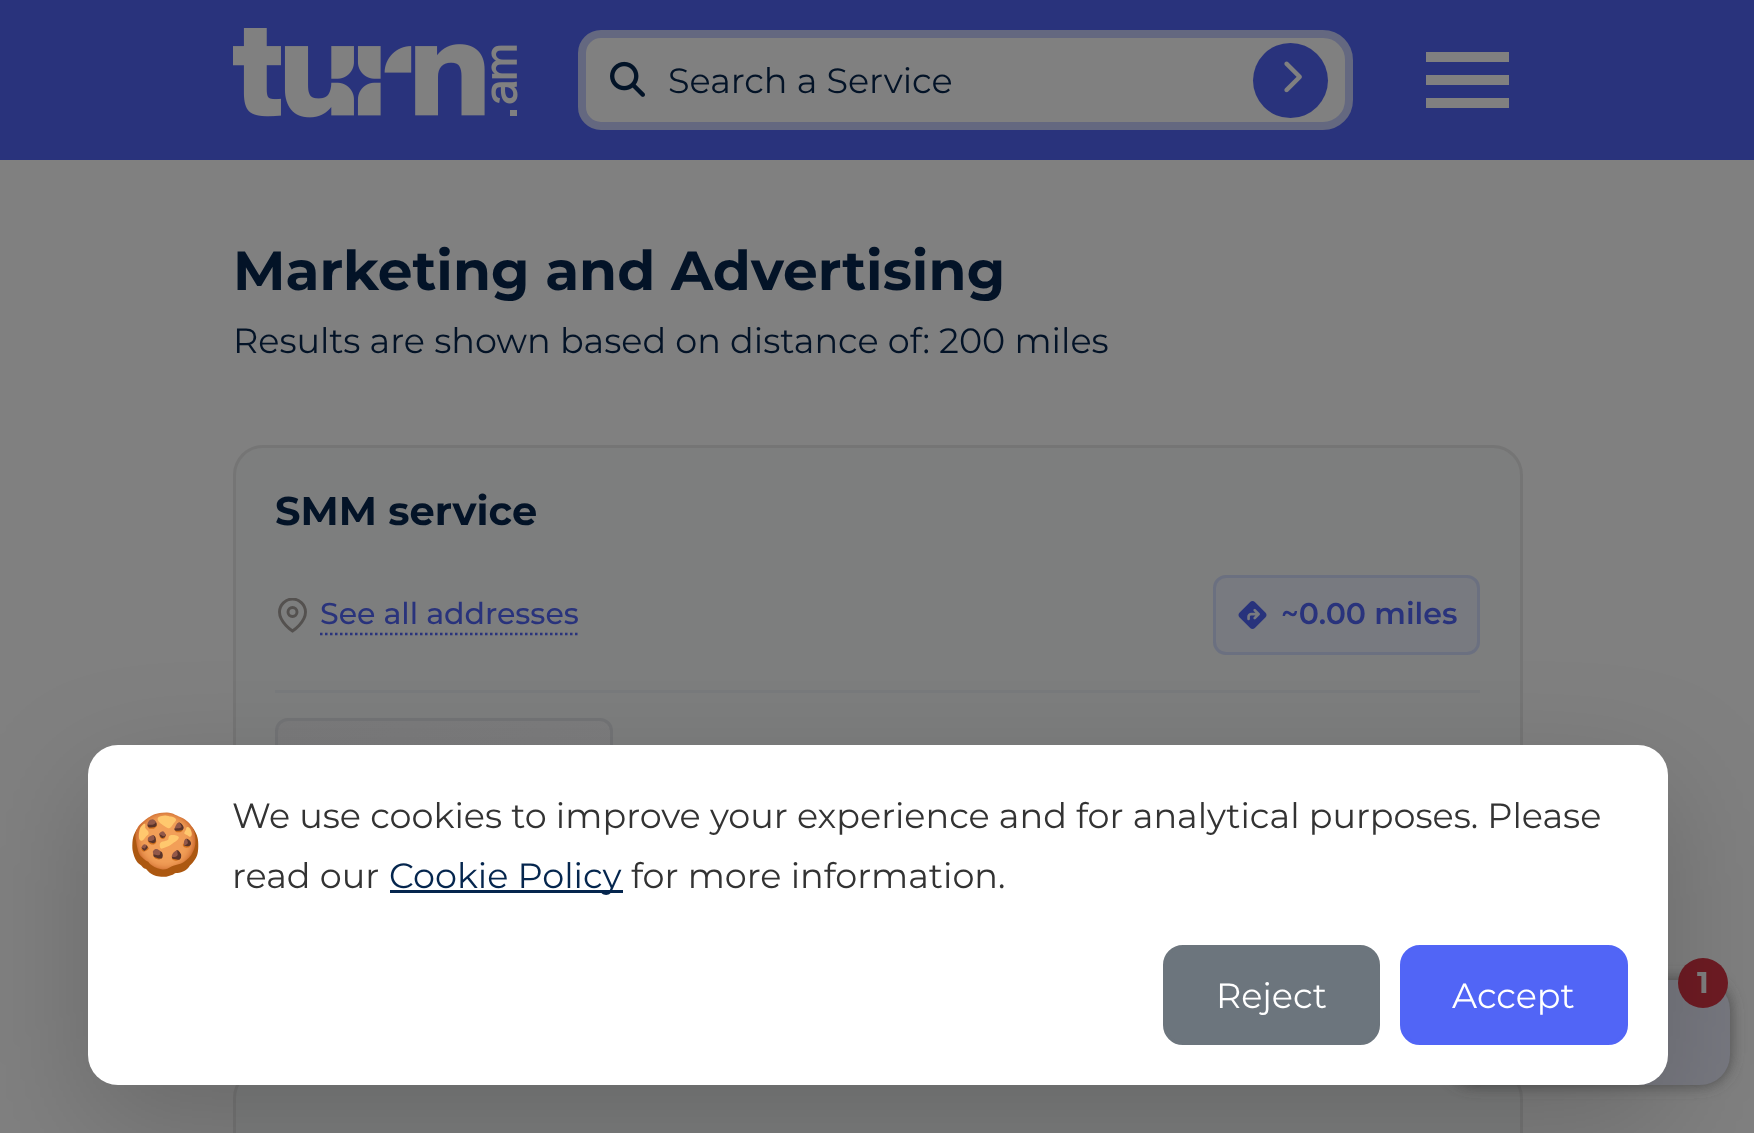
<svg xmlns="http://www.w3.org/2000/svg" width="1754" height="1133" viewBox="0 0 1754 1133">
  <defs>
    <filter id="blur1" x="-50%" y="-200%" width="200%" height="500%"><feGaussianBlur stdDeviation="7.5"/></filter>
    <clipPath id="clip1"><rect x="275" y="598" width="35" height="35"/></clipPath>
    <clipPath id="clip2"><rect x="275" y="718" width="338" height="90" rx="13"/></clipPath>
    <linearGradient id="g1" gradientUnits="userSpaceOnUse" x1="339" y1="658" x2="548" y2="867"><stop offset="0" stop-color="#7a7a7b"/><stop offset="1" stop-color="#7d7d7e"/></linearGradient>
    <filter id="blur2" x="-50%" y="-200%" width="200%" height="500%"><feGaussianBlur stdDeviation="60"/></filter>
  </defs>
  <rect width="100%" height="100%" fill="#808080"/>
  <rect x="0" y="0" width="1754" height="160" fill="#29337c"/>
  <image x="233" y="28" width="285" height="90" href="img1.png"/>
  <path d="M601 34H1323C1337.5 34 1349 45.5 1349 60V100C1349 114.5 1337.5 126 1323 126H601C590.5 126 582 117.5 582 107V53C582 42.5 590.5 34 601 34Z" fill="#808080" stroke="#646880" stroke-width="8"/>
  <image x="610" y="61" width="35" height="36" href="img2.png"/>
  <text x="668" y="93" font-family="Montserrat" font-size="35" fill="#031327">Search a Service</text>
  <circle cx="1290.5" cy="80.5" r="37.5" fill="#29337c"/>
  <image x="1284" y="61" width="18" height="32" href="img3.png"/>
  <path d="M1426 108V98H1509V108ZM1426 85V75H1509V85ZM1426 62V52H1509V62Z" fill="#808080"/>
  <text x="233" y="290" font-family="Montserrat" font-size="55" font-weight="bold" fill="#031327">Marketing and Advertising</text>
  <text x="233" y="353" font-family="Montserrat" font-size="35" fill="#031327">Results are shown based on distance of: 200 miles</text>
  <rect x="234.5" y="446.5" width="1287" height="560" rx="28.5" fill="#7d7e7e" stroke="#757575" stroke-width="3"/>
  <rect x="234.5" y="1069.5" width="1287" height="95" rx="28.5" fill="#7d7e7e" stroke="#757575" stroke-width="3"/>
  <rect x="1445" y="980" width="285" height="105" rx="30" fill="#4b4b4b" filter="url(#blur1)"/>
  <rect x="1445" y="980" width="285" height="105" rx="30" fill="#777880"/>
  <circle cx="1703" cy="983" r="25" fill="#6e1b23"/>
  <text x="1697" y="993" font-family="Montserrat" font-size="30" font-weight="bold" fill="#808080">1</text>
  <text x="275" y="525" font-family="Montserrat" font-size="40" font-weight="bold" fill="#031327">SMM service</text>
  <g clip-path="url(#clip1)">
    <path d="M305.5 612C305.5 622.5 292.5 631 292.5 631C292.5 631 279.5 622.5 279.5 612C279.5 605 285.5 599 292.5 599C299.5 599 305.5 605 305.5 612Z" fill="none" stroke="#54514f" stroke-width="2.9"/>
  </g>
  <circle cx="292.5" cy="612" r="4.5" fill="none" stroke="#54514f" stroke-width="2.9"/>
  <text x="320" y="624" font-family="Montserrat" font-size="30" font-weight="500" fill="#29337c">See all addresses</text>
  <path d="M320 634H579" fill="none" stroke="#29337c" stroke-width="2.5" stroke-dasharray="2.5 2.5"/>
  <rect x="1214.5" y="576.5" width="264" height="77" rx="11.5" fill="#787a80" stroke="#6b7080" stroke-width="3"/>
  <image x="1238" y="601" width="29" height="28" href="img4.png"/>
  <text x="1281" y="624" font-family="Montserrat" font-size="30" font-weight="600" fill="#29337c">~0.00 miles</text>
  <rect x="275" y="690" width="1205" height="3" fill="#787a7c"/>
  <g clip-path="url(#clip2)">
    <rect x="278" y="720" width="332" height="25" fill="url(#g1)"/>
  </g>
  <rect x="276.5" y="719.5" width="335" height="87" rx="11.5" fill="none" stroke="#737476" stroke-width="3"/>
  <rect x="88" y="785" width="1580" height="340" rx="30" fill="#000000" fill-opacity="0.18" filter="url(#blur2)"/>
  <rect x="88" y="745" width="1580" height="340" rx="30" fill="#ffffff"/>
  <text x="128" y="865" font-family="Noto Color Emoji" font-size="60" fill="#333333">🍪</text>
  <text x="232" y="828" font-family="Montserrat" font-size="35" fill="#333333">We use cookies to improve your experience and for analytical purposes. Please</text>
  <text x="232" y="888" font-family="Montserrat" font-size="35" fill="#333333">read our</text>
  <rect x="390" y="890" width="233" height="3" fill="#05264e"/>
  <text x="389" y="888" font-family="Montserrat" font-size="35" fill="#05264e">Cookie Policy</text>
  <text x="631" y="888" font-family="Montserrat" font-size="35" fill="#333333">for more information.</text>
  <rect x="1164.5" y="946.5" width="214" height="97" rx="18.5" fill="#6c757d" stroke="#6c757d" stroke-width="3"/>
  <text x="1216" y="1008" font-family="Montserrat" font-size="35" fill="#ffffff">Reject</text>
  <rect x="1401.5" y="946.5" width="225" height="97" rx="18.5" fill="#5165f6" stroke="#5165f6" stroke-width="3"/>
  <text x="1452" y="1008" font-family="Montserrat" font-size="35" fill="#ffffff">Accept</text>
</svg>
